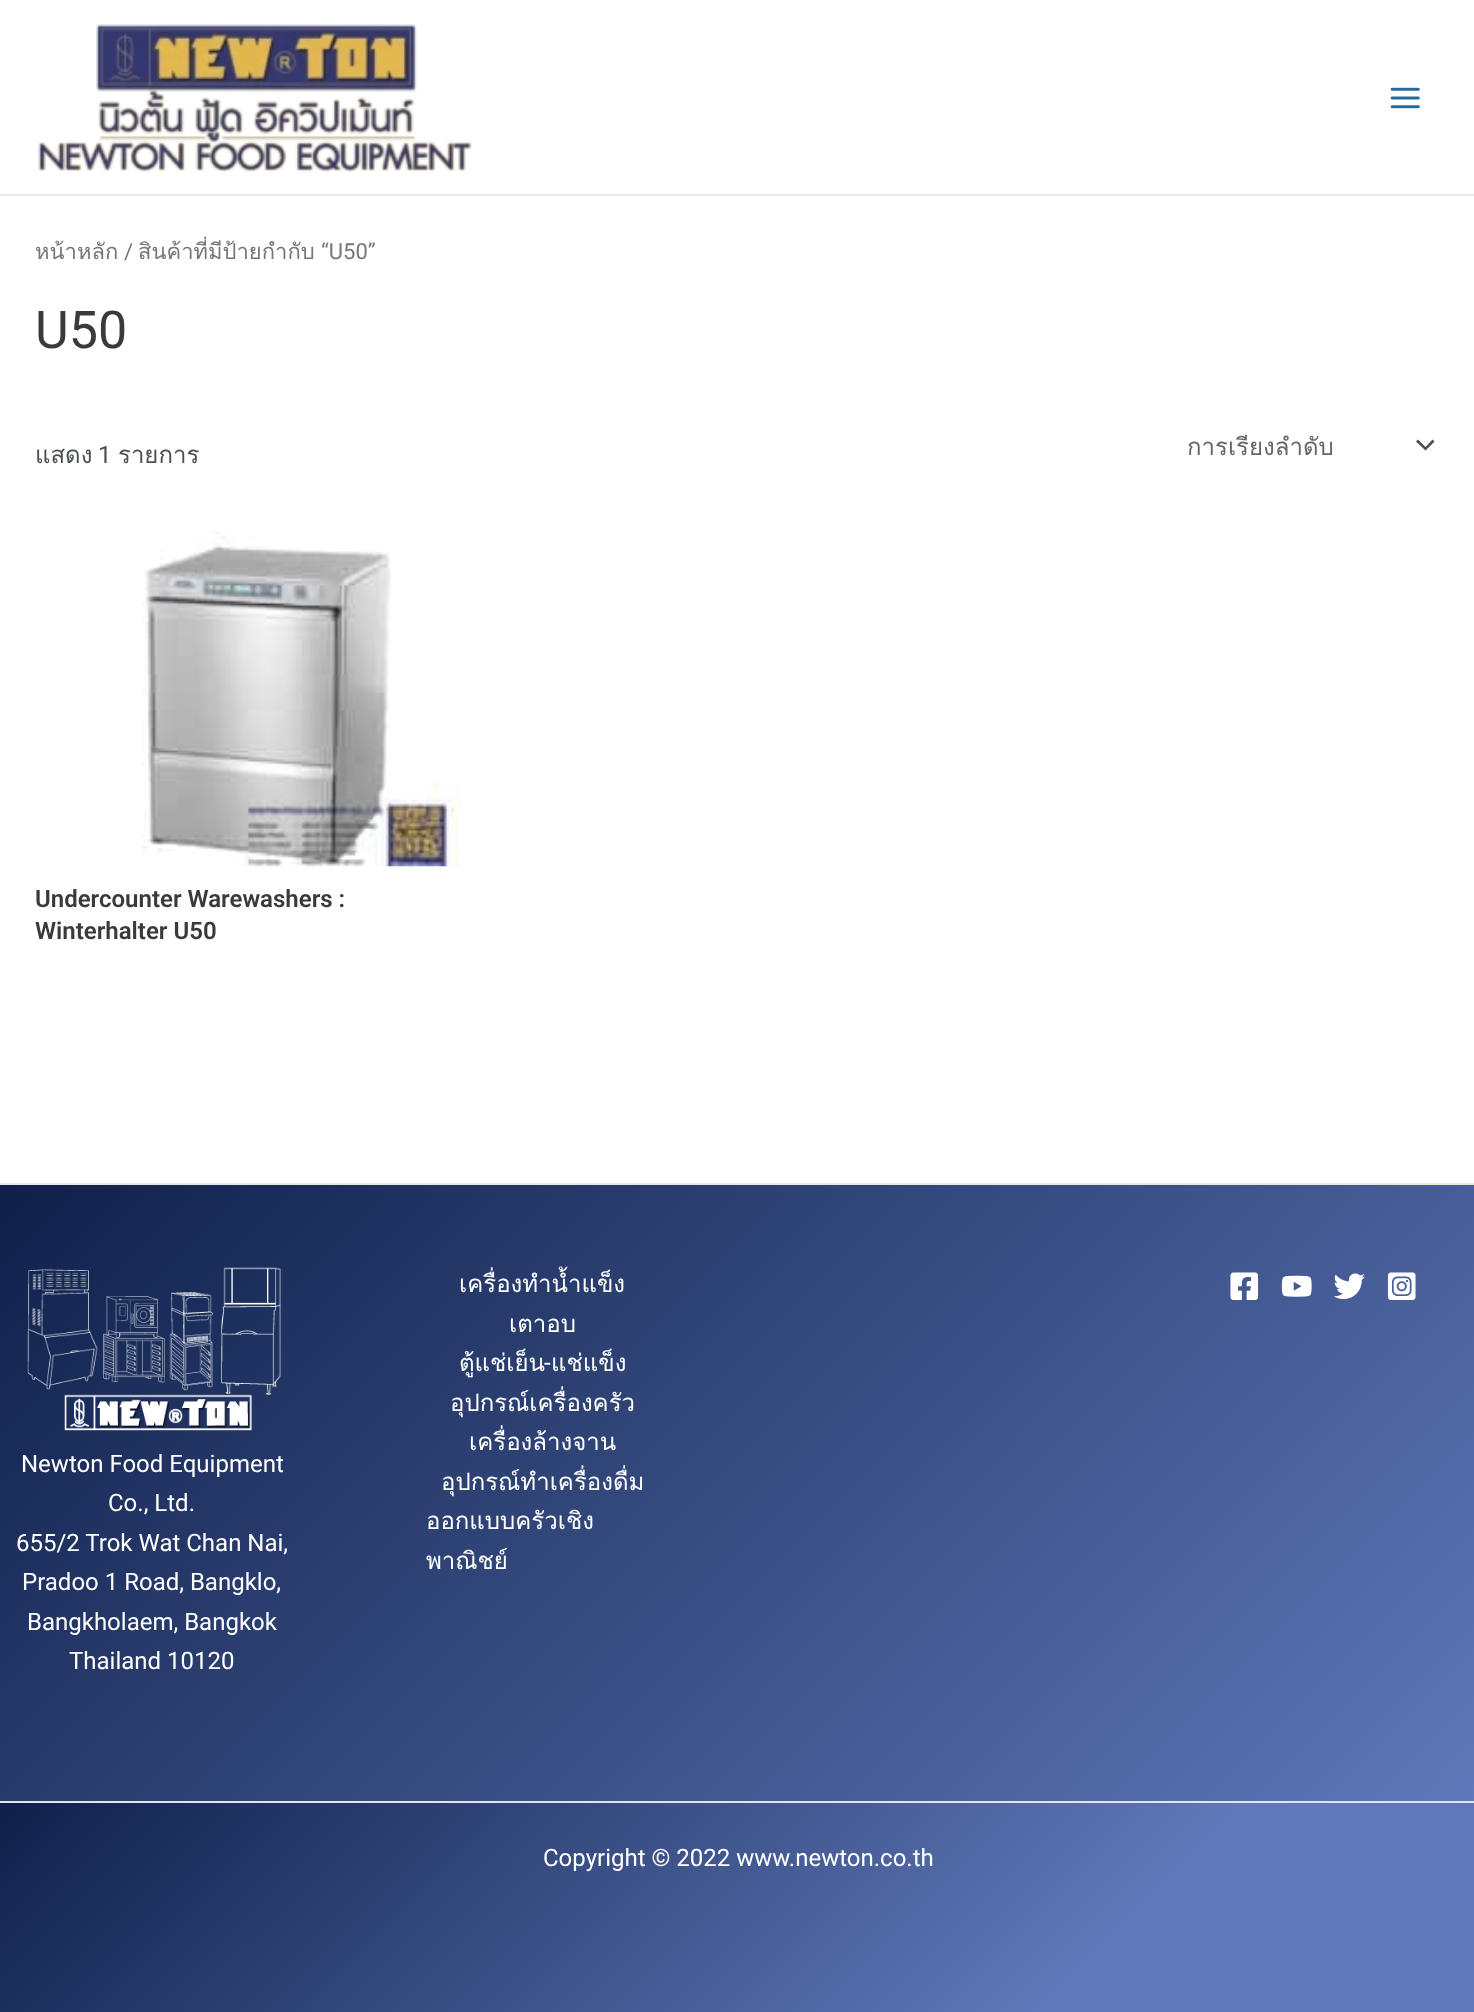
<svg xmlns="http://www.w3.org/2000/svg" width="1474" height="2012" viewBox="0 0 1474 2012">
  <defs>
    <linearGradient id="g1" gradientUnits="userSpaceOnUse" x1="215" y1="970" x2="1260" y2="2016"><stop offset="0" stop-color="#0f204a"/><stop offset="1" stop-color="#5f78b9"/></linearGradient>
    <linearGradient id="g2" gradientUnits="userSpaceOnUse" x1="316" y1="1486" x2="1159" y2="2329"><stop offset="0" stop-color="#0f204a"/><stop offset="0.74" stop-color="#5f78b9"/></linearGradient>
  </defs>
  <rect width="100%" height="100%" fill="#ffffff"/>
  <rect x="0" y="194" width="1474" height="2" fill="#eaeaea"/>
  <image x="37" y="24" width="435" height="148" href="img1.png"/>
  <image x="1390" y="87" width="30" height="22" href="img2.png"/>
  <text x="35" y="259" font-family="Loma" font-size="22" fill="#777777">หน้าหลัก</text>
  <text x="124" y="259" font-family="Roboto" font-size="22" fill="#777777">/</text>
  <text x="138" y="259" font-family="Loma" font-size="22" fill="#777777">สินค้าที่มีป้ายกำกับ</text>
  <text x="321" y="259" font-family="Roboto" font-size="22" fill="#777777">“U50”</text>
  <text x="35" y="348" font-family="Roboto" font-size="52" fill="#3a3a3a">U50</text>
  <text x="35" y="463" font-family="Loma" font-size="24" fill="#4c4f55">แสดง</text>
  <text x="98" y="463" font-family="Roboto" font-size="24" fill="#4c4f55">1</text>
  <text x="118" y="463" font-family="Loma" font-size="24" fill="#4c4f55">รายการ</text>
  <path d="M1416 441.5L1425.5 450.5L1434.5 441.5L1432.5 439.5L1425.5 447L1418 439.5Z" fill="#4c4f55"/>
  <text x="1187" y="455" font-family="Loma" font-size="24" fill="#666666">การเรียงลำดับ</text>
  <image x="141" y="532" width="321" height="335" href="img3.png"/>
  <text x="35" y="907" font-family="Roboto" font-size="24" font-weight="600" fill="#3a3a3a">Undercounter Warewashers :</text>
  <text x="35" y="939" font-family="Roboto" font-size="24" font-weight="600" fill="#3a3a3a">Winterhalter U50</text>
  <rect x="0" y="1185" width="1474" height="616" fill="url(#g1)"/>
  <rect x="0" y="1183" width="1474" height="2" fill="#e6e6e6"/>
  <text x="459" y="1292" font-family="Loma" font-size="24" fill="#ffffff">เครื่องทำน้ำแข็ง</text>
  <text x="509" y="1332" font-family="Loma" font-size="24" fill="#ffffff">เตาอบ</text>
  <text x="459" y="1371" font-family="Loma" font-size="24" fill="#ffffff">ตู้แช่เย็น</text>
  <text x="544" y="1371" font-family="Roboto" font-size="24" fill="#ffffff">-</text>
  <text x="551" y="1371" font-family="Loma" font-size="24" fill="#ffffff">แช่แข็ง</text>
  <text x="450" y="1411" font-family="Loma" font-size="24" fill="#ffffff">อุปกรณ์เครื่องครัว</text>
  <text x="469" y="1450" font-family="Loma" font-size="24" fill="#ffffff">เครื่องล้างจาน</text>
  <text x="441" y="1490" font-family="Loma" font-size="24" fill="#ffffff">อุปกรณ์ทำเครื่องดื่ม</text>
  <text x="426" y="1529" font-family="Loma" font-size="24" fill="#ffffff">ออกแบบครัวเชิง</text>
  <text x="426" y="1569" font-family="Loma" font-size="24" fill="#ffffff">พาณิชย์</text>
  <image x="1230" y="1272" width="29" height="28" href="img4.png"/>
  <image x="1281" y="1275" width="31" height="22" href="img5.png"/>
  <image x="1334" y="1273" width="31" height="26" href="img6.png"/>
  <image x="1387" y="1272" width="29" height="28" href="img7.png"/>
  <image x="27" y="1267" width="254" height="164" href="img8.png"/>
  <text x="21" y="1472" font-family="Roboto" font-size="24" fill="#ffffff">Newton Food Equipment</text>
  <text x="108" y="1511" font-family="Roboto" font-size="24" fill="#ffffff">Co., Ltd.</text>
  <text x="16" y="1551" font-family="Roboto" font-size="24" fill="#ffffff">655/2 Trok Wat Chan Nai,</text>
  <text x="22" y="1590" font-family="Roboto" font-size="24" fill="#ffffff">Pradoo 1 Road, Bangklo,</text>
  <text x="27" y="1630" font-family="Roboto" font-size="24" fill="#ffffff">Bangkholaem, Bangkok</text>
  <text x="69" y="1669" font-family="Roboto" font-size="24" fill="#ffffff">Thailand 10120</text>
  <rect x="0" y="1803" width="1474" height="209" fill="url(#g2)"/>
  <rect x="0" y="1801" width="1474" height="2" fill="#e5e5e5"/>
  <text x="543" y="1866" font-family="Roboto" font-size="24" fill="#ffffff">Copyright © 2022 www.newton.co.th</text>
</svg>
